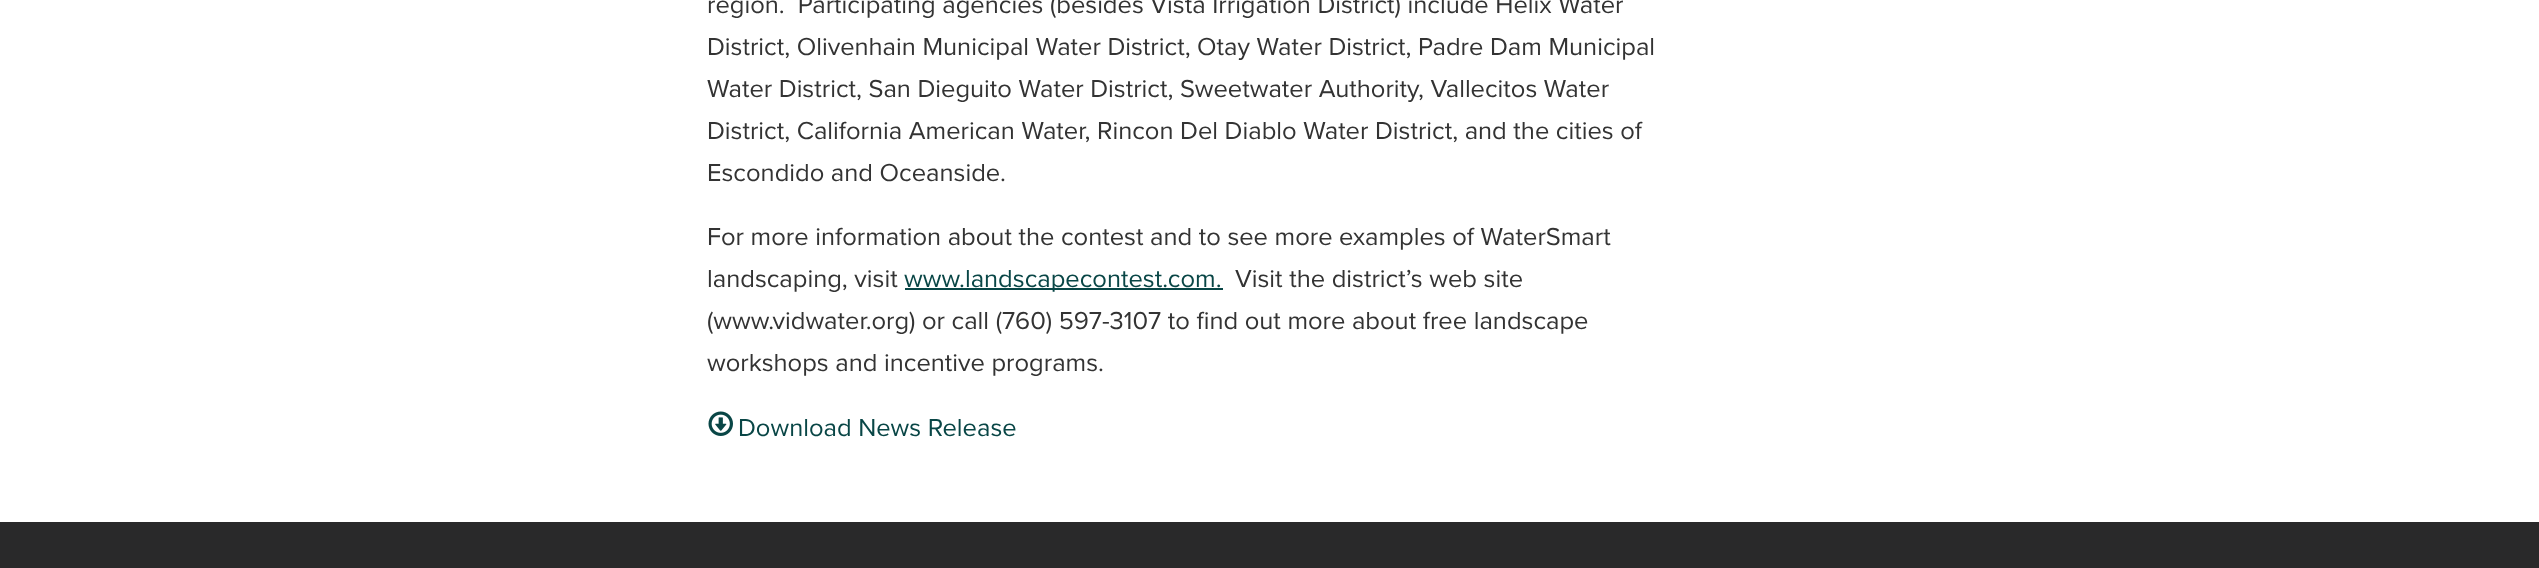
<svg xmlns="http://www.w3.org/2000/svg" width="2539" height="568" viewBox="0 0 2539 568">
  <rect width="100%" height="100%" fill="#29292a"/>
  <rect x="0" y="0" width="2539" height="522" fill="#ffffff"/>
  <text x="707" y="13" font-family="Proxima Nova" font-size="25.5" fill="#333333" xml:space="preserve">region.  Participating agencies (besides Vista Irrigation District) include Helix Water</text>
  <text x="707" y="55" font-family="Proxima Nova" font-size="25.5" fill="#333333">District, Olivenhain Municipal Water District, Otay Water District, Padre Dam Municipal</text>
  <text x="707" y="97" font-family="Proxima Nova" font-size="25.5" fill="#333333">Water District, San Dieguito Water District, Sweetwater Authority, Vallecitos Water</text>
  <text x="707" y="139" font-family="Proxima Nova" font-size="25.5" fill="#333333">District, California American Water, Rincon Del Diablo Water District, and the cities of</text>
  <text x="707" y="181" font-family="Proxima Nova" font-size="25.5" fill="#333333">Escondido and Oceanside.</text>
  <text x="707" y="245" font-family="Proxima Nova" font-size="25.5" fill="#333333">For more information about the contest and to see more examples of WaterSmart</text>
  <text x="707" y="287" font-family="Proxima Nova" font-size="25.5" fill="#333333">landscaping, visit</text>
  <rect x="905" y="288" width="318" height="2" fill="#094646"/>
  <text x="904" y="287" font-family="Proxima Nova" font-size="25.5" fill="#094646">www.landscapecontest.com.</text>
  <text x="1235" y="287" font-family="Proxima Nova" font-size="25.5" fill="#333333">Visit the district’s web site</text>
  <text x="707" y="329" font-family="Proxima Nova" font-size="25.5" fill="#333333">(www.vidwater.org) or call (760) 597-3107 to find out more about free landscape</text>
  <text x="707" y="371" font-family="Proxima Nova" font-size="25.5" fill="#333333">workshops and incentive programs.</text>
  <image x="708" y="411" width="25" height="25" href="img1.png"/>
  <text x="738" y="436" font-family="Proxima Nova" font-size="25.5" fill="#094646">Download News Release</text>
</svg>
